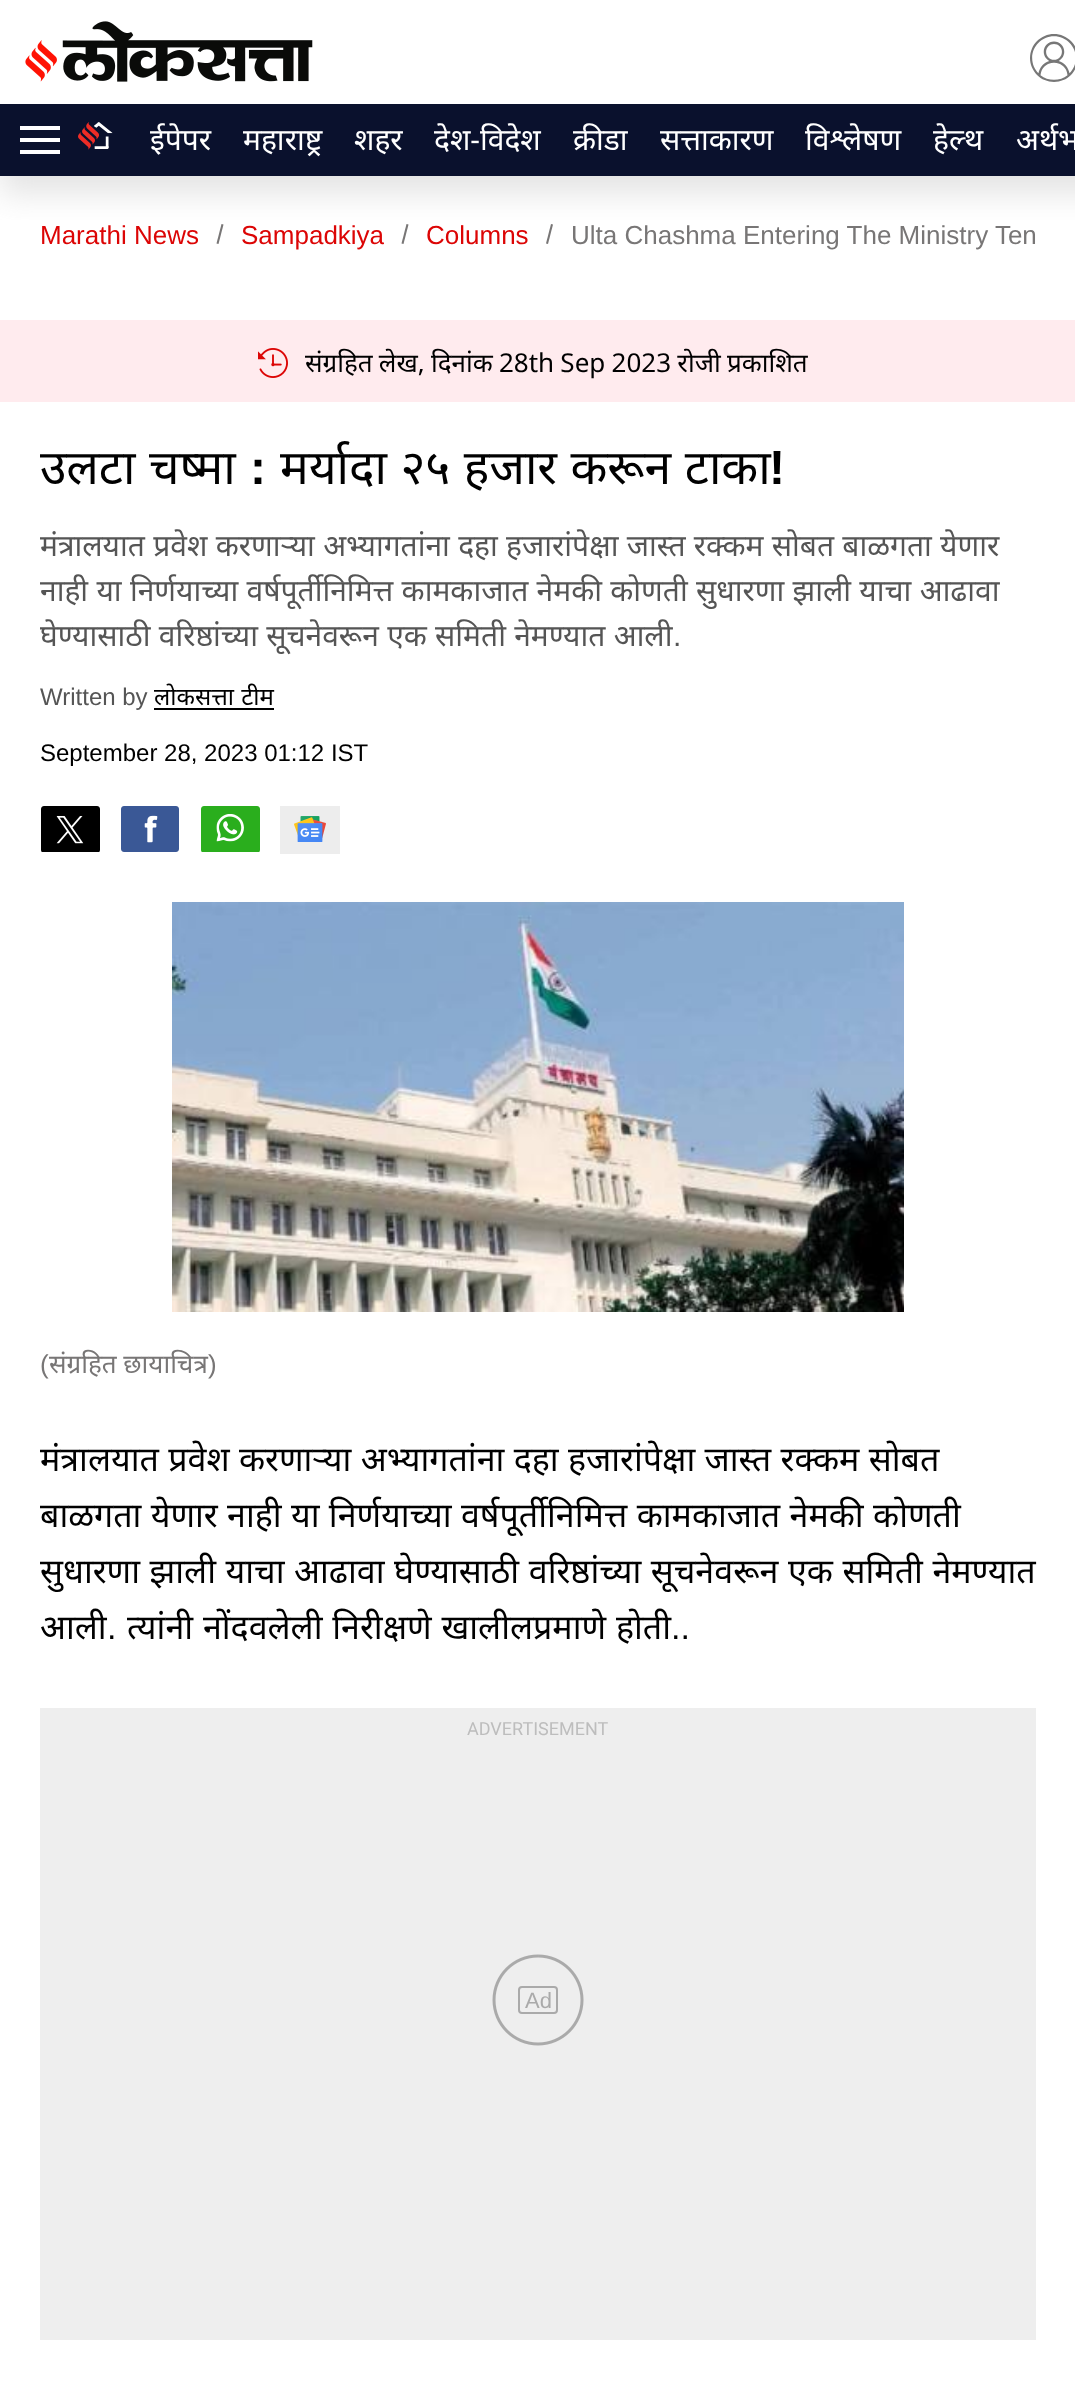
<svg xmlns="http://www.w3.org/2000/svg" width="1075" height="2395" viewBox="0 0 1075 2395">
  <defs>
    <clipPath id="clip1"><rect x="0" y="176" width="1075" height="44"/></clipPath>
    <filter id="blur1" x="-50%" y="-200%" width="200%" height="500%"><feGaussianBlur stdDeviation="15"/></filter>
  </defs>
  <rect width="100%" height="100%" fill="#ffffff"/>
  <rect x="0" y="104" width="1075" height="72" fill="#0a112d"/>
  <path d="M221.5 224L223.5 224.5L218.5 244L216.5 243.5Z" fill="#787676"/>
  <path d="M406.5 224L408.5 224.5L403.5 244L401.5 243.5Z" fill="#787676"/>
  <path d="M551 224L553 224.5L548 244L546 243.5Z" fill="#787676"/>
  <g clip-path="url(#clip1)">
    <rect x="0" y="122" width="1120" height="72" fill="#cacaca" fill-opacity="0.5" filter="url(#blur1)"/>
  </g>
  <rect x="20" y="102" width="1055" height="2" fill="#ffffff"/>
  <image x="25" y="21" width="288" height="61" href="img1.png"/>
  <image x="1030" y="34" width="45" height="48" href="img2.png"/>
  <rect x="20" y="126" width="40" height="4" fill="#ffffff"/>
  <rect x="20" y="138" width="40" height="4" fill="#ffffff"/>
  <rect x="20" y="150" width="40" height="4" fill="#ffffff"/>
  <image x="78" y="122" width="35" height="28" href="img3.png"/>
  <text x="150" y="150" font-family="Noto Sans" font-size="30" fill="#ffffff">ईपेपर</text>
  <text x="243" y="150" font-family="Noto Sans" font-size="30" fill="#ffffff">महाराष्ट्र</text>
  <text x="354" y="150" font-family="Noto Sans" font-size="30" fill="#ffffff">शहर</text>
  <text x="434" y="150" font-family="Noto Sans" font-size="30" fill="#ffffff">देश-विदेश</text>
  <text x="573" y="150" font-family="Noto Sans" font-size="30" fill="#ffffff">क्रीडा</text>
  <text x="660" y="150" font-family="Noto Sans" font-size="30" fill="#ffffff">सत्ताकारण</text>
  <text x="805" y="150" font-family="Noto Sans" font-size="30" fill="#ffffff">विश्लेषण</text>
  <text x="933" y="150" font-family="Noto Sans" font-size="30" fill="#ffffff">हेल्थ</text>
  <text x="1016" y="150" font-family="Noto Sans" font-size="30" fill="#ffffff">अर्थभा</text>
  <text x="40" y="244" font-family="Liberation Sans" font-size="26" fill="#dc0505">Marathi News</text>
  <text x="241" y="244" font-family="Liberation Sans" font-size="26" fill="#dc0505">Sampadkiya</text>
  <text x="426" y="244" font-family="Liberation Sans" font-size="26" fill="#dc0505">Columns</text>
  <text x="571" y="244" font-family="Liberation Sans" font-size="26" fill="#787676">Ulta Chashma Entering The Ministry Ten</text>
  <rect x="0" y="320" width="1075" height="82" fill="#ffebee"/>
  <image x="258" y="348" width="30" height="30" href="img4.png"/>
  <text x="305" y="372" word-spacing="-0.5" font-family="Noto Sans" font-size="26" fill="#000000">संग्रहित लेख, दिनांक 28th Sep 2023 रोजी प्रकाशित</text>
  <text x="40" y="484" word-spacing="1" font-family="Noto Sans" font-size="48" fill="#000000">उलटा चष्मा</text>
  <text x="250" y="484" font-family="Liberation Sans" font-size="48" font-weight="bold" fill="#000000">:</text>
  <text x="280" y="484" word-spacing="1" font-family="Noto Sans" font-size="48" fill="#000000">मर्यादा २५ हजार करून टाका</text>
  <text x="769" y="484" font-family="Liberation Sans" font-size="48" font-weight="bold" fill="#000000">!</text>
  <text x="40" y="556" word-spacing="0.5" font-family="Noto Sans" font-size="30" fill="#555555">मंत्रालयात प्रवेश करणाऱ्या अभ्यागतांना दहा हजारांपेक्षा जास्त रक्कम सोबत बाळगता येणार</text>
  <text x="40" y="601" word-spacing="0.5" font-family="Noto Sans" font-size="30" fill="#555555">नाही या निर्णयाच्या वर्षपूर्तीनिमित्त कामकाजात नेमकी कोणती सुधारणा झाली याचा आढावा</text>
  <text x="40" y="646" word-spacing="0.5" font-family="Noto Sans" font-size="30" fill="#555555">घेण्यासाठी वरिष्ठांच्या सूचनेवरून एक समिती नेमण्यात आली</text>
  <text x="673" y="646" font-family="Liberation Sans" font-size="30" fill="#555555">.</text>
  <text x="40" y="705" font-family="Liberation Sans" font-size="24" fill="#555555">Written by</text>
  <text x="154" y="705" word-spacing="1" font-family="Noto Sans" font-size="24" fill="#000000">लोकसत्ता टीम</text>
  <rect x="154" y="708" width="120" height="2" fill="#000000"/>
  <text x="40" y="761" font-family="Liberation Sans" font-size="24" fill="#000000">September 28, 2023 01:12 IST</text>
  <image x="41" y="806" width="59" height="46" href="img5.png"/>
  <image x="121" y="806" width="58" height="46" href="img6.png"/>
  <image x="201" y="806" width="59" height="46" href="img7.png"/>
  <rect x="280" y="806" width="60" height="48" fill="#ededed"/>
  <image x="294" y="816" width="32" height="26" href="img8.png"/>
  <image x="172" y="902" width="732" height="410" href="img9.png"/>
  <text x="40" y="1373" font-family="Liberation Sans" font-size="26" fill="#787676">(</text>
  <text x="49" y="1373" font-family="Noto Sans" font-size="26" fill="#787676">संग्रहित छायाचित्र</text>
  <text x="208" y="1373" font-family="Liberation Sans" font-size="26" fill="#787676">)</text>
  <text x="40" y="1471" word-spacing="0.5" font-family="Noto Sans" font-size="34" fill="#000000">मंत्रालयात प्रवेश करणाऱ्या अभ्यागतांना दहा हजारांपेक्षा जास्त रक्कम सोबत</text>
  <text x="40" y="1527" word-spacing="0.5" font-family="Noto Sans" font-size="34" fill="#000000">बाळगता येणार नाही या निर्णयाच्या वर्षपूर्तीनिमित्त कामकाजात नेमकी कोणती</text>
  <text x="40" y="1583" word-spacing="0.75" font-family="Noto Sans" font-size="34" fill="#000000">सुधारणा झाली याचा आढावा घेण्यासाठी वरिष्ठांच्या सूचनेवरून एक समिती नेमण्यात</text>
  <text x="40" y="1639" font-family="Noto Sans" font-size="34" fill="#000000">आली</text>
  <text x="107" y="1639" font-family="Liberation Sans" font-size="34" fill="#000000">.</text>
  <text x="127" y="1639" word-spacing="1" font-family="Noto Sans" font-size="34" fill="#000000">त्यांनी नोंदवलेली निरीक्षणे खालीलप्रमाणे होती</text>
  <text x="671" y="1639" font-family="Liberation Sans" font-size="34" fill="#000000">..</text>
  <rect x="40" y="1708" width="996" height="632" fill="#eeeeee"/>
  <text x="467" y="1735" font-family="Roboto" font-size="18" fill="#bdbdbd">ADVERTISEMENT</text>
  <rect x="519" y="1987" width="38" height="26" rx="3" fill="none" stroke="#aaaaaa" stroke-width="2"/>
  <text x="525" y="2008" font-family="Liberation Sans" font-size="22" fill="#aaaaaa">Ad</text>
  <image x="492" y="1954" width="92" height="92" href="img10.png"/>
</svg>
